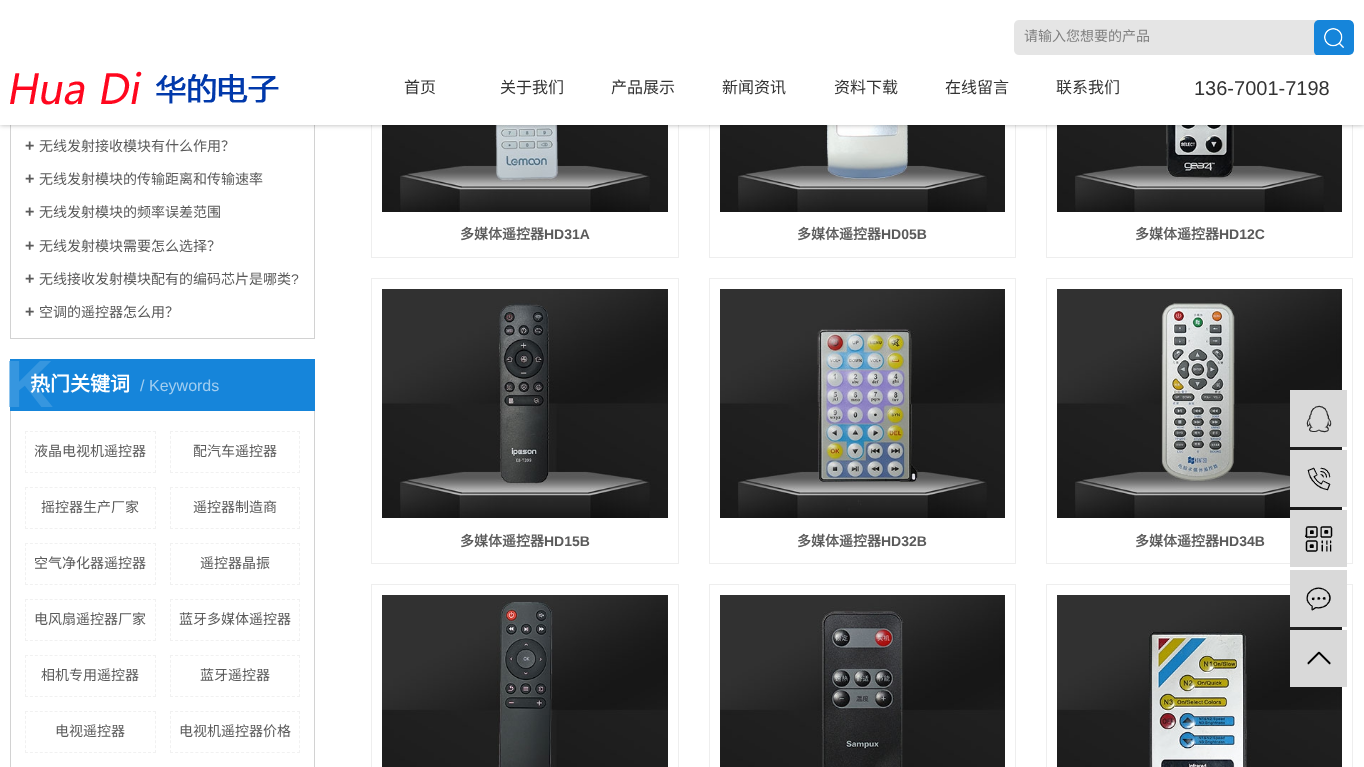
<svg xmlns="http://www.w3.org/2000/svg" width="1364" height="767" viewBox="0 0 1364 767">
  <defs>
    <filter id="blur1" x="-50%" y="-200%" width="200%" height="500%"><feGaussianBlur stdDeviation="2.5"/></filter>
    <clipPath id="clip1"><rect x="1014" y="20" width="340" height="35" rx="5"/></clipPath>
  </defs>
  <rect width="100%" height="100%" fill="#ffffff"/>
  <rect x="314" y="119" width="1" height="220" fill="#d2d2d2"/>
  <rect x="10" y="338" width="305" height="1" fill="#d2d2d2"/>
  <rect x="10" y="119" width="1" height="220" fill="#d2d2d2"/>
  <rect x="371.5" y="-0.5" width="307" height="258" fill="none" stroke="#eeeeee"/>
  <image x="382" y="125" width="286" height="87" href="img3.png"/>
  <rect x="709.5" y="-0.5" width="306" height="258" fill="none" stroke="#eeeeee"/>
  <image x="720" y="125" width="285" height="87" href="img4.png"/>
  <rect x="1046.5" y="-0.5" width="306" height="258" fill="none" stroke="#eeeeee"/>
  <image x="1057" y="125" width="285" height="87" href="img5.png"/>
  <rect x="0" y="0" width="1364" height="125" fill="#000000" fill-opacity="0.3" filter="url(#blur1)"/>
  <rect x="0" y="0" width="1364" height="125" fill="#ffffff"/>
  <rect x="1014" y="20" width="340" height="35" rx="5" fill="#e5e5e5"/>
  <text x="1024" y="41" font-family="Noto Sans CJK SC" font-size="14" fill="#808080">请输入您想要的产品</text>
  <g clip-path="url(#clip1)">
    <rect x="1314" y="20" width="40" height="36" rx="5" fill="#1685da"/>
  </g>
  <image x="1324" y="28" width="20" height="20" href="img1.png"/>
  <image x="10" y="71" width="269" height="34" href="img2.png"/>
  <text x="404" y="93" font-family="Noto Sans CJK SC" font-size="16" fill="#333333">首页</text>
  <text x="500" y="93" font-family="Noto Sans CJK SC" font-size="16" fill="#333333">关于我们</text>
  <text x="611" y="93" font-family="Noto Sans CJK SC" font-size="16" fill="#333333">产品展示</text>
  <text x="722" y="93" font-family="Noto Sans CJK SC" font-size="16" fill="#333333">新闻资讯</text>
  <text x="834" y="93" font-family="Noto Sans CJK SC" font-size="16" fill="#333333">资料下载</text>
  <text x="945" y="93" font-family="Noto Sans CJK SC" font-size="16" fill="#333333">在线留言</text>
  <text x="1056" y="93" font-family="Noto Sans CJK SC" font-size="16" fill="#333333">联系我们</text>
  <text x="1194" y="95" font-family="Liberation Sans" font-size="20" fill="#333333">136-7001-7198</text>
  <text x="25" y="151" font-family="Liberation Sans" font-size="16" font-weight="bold" fill="#5a5a5a">+</text>
  <text x="39" y="151" font-family="Noto Sans CJK SC" font-size="14" fill="#5a5a5a">无线发射接收模块有什么作用？</text>
  <text x="25" y="184" font-family="Liberation Sans" font-size="16" font-weight="bold" fill="#5a5a5a">+</text>
  <text x="39" y="184" font-family="Noto Sans CJK SC" font-size="14" fill="#5a5a5a">无线发射模块的传输距离和传输速率</text>
  <text x="25" y="217" font-family="Liberation Sans" font-size="16" font-weight="bold" fill="#5a5a5a">+</text>
  <text x="39" y="217" font-family="Noto Sans CJK SC" font-size="14" fill="#5a5a5a">无线发射模块的频率误差范围</text>
  <text x="25" y="251" font-family="Liberation Sans" font-size="16" font-weight="bold" fill="#5a5a5a">+</text>
  <text x="39" y="251" font-family="Noto Sans CJK SC" font-size="14" fill="#5a5a5a">无线发射模块需要怎么选择？</text>
  <text x="25" y="284" font-family="Liberation Sans" font-size="16" font-weight="bold" fill="#5a5a5a">+</text>
  <text x="39" y="284" font-family="Noto Sans CJK SC" font-size="14" fill="#5a5a5a">无线接收发射模块配有的编码芯片是哪类</text>
  <text x="291" y="284" font-family="Liberation Sans" font-size="14" fill="#5a5a5a">?</text>
  <text x="25" y="317" font-family="Liberation Sans" font-size="16" font-weight="bold" fill="#5a5a5a">+</text>
  <text x="39" y="317" font-family="Noto Sans CJK SC" font-size="14" fill="#5a5a5a">空调的遥控器怎么用？</text>
  <rect x="10" y="359" width="305" height="52" fill="#1685da"/>
  <text x="5" y="407" font-family="Liberation Sans" font-size="67" font-weight="bold" fill="#3696df">K</text>
  <text x="30" y="391" font-family="Noto Sans CJK SC" font-size="20" font-weight="bold" fill="#ffffff">热门关键词</text>
  <text x="140" y="391" font-family="Liberation Sans" font-size="16" fill="#a2cef0">/</text>
  <text x="149" y="391" font-family="Liberation Sans" font-size="16" fill="#a2cef0">Keywords</text>
  <rect x="314" y="411" width="1" height="356" fill="#d2d2d2"/>
  <rect x="10" y="411" width="1" height="356" fill="#d2d2d2"/>
  <path d="M25 431.5H156" fill="none" stroke="#f1f1f1" stroke-dasharray="3 1.92"/>
  <path d="M155.5 431V473" fill="none" stroke="#f1f1f1" stroke-dasharray="3 1.88"/>
  <path d="M25 472.5H156" fill="none" stroke="#f1f1f1" stroke-dasharray="3 1.92"/>
  <path d="M25.5 431V473" fill="none" stroke="#f1f1f1" stroke-dasharray="3 1.88"/>
  <text x="34" y="456" font-family="Noto Sans CJK SC" font-size="14" fill="#5a5a5a">液晶电视机遥控器</text>
  <path d="M170 431.5H300" fill="none" stroke="#f1f1f1" stroke-dasharray="3 2.08"/>
  <path d="M299.5 431V473" fill="none" stroke="#f1f1f1" stroke-dasharray="3 1.88"/>
  <path d="M170 472.5H300" fill="none" stroke="#f1f1f1" stroke-dasharray="3 2.08"/>
  <path d="M170.5 431V473" fill="none" stroke="#f1f1f1" stroke-dasharray="3 1.88"/>
  <text x="193" y="456" font-family="Noto Sans CJK SC" font-size="14" fill="#5a5a5a">配汽车遥控器</text>
  <path d="M25 487.5H156" fill="none" stroke="#f1f1f1" stroke-dasharray="3 1.92"/>
  <path d="M155.5 487V529" fill="none" stroke="#f1f1f1" stroke-dasharray="3 1.88"/>
  <path d="M25 528.5H156" fill="none" stroke="#f1f1f1" stroke-dasharray="3 1.92"/>
  <path d="M25.5 487V529" fill="none" stroke="#f1f1f1" stroke-dasharray="3 1.88"/>
  <text x="41" y="512" font-family="Noto Sans CJK SC" font-size="14" fill="#5a5a5a">摇控器生产厂家</text>
  <path d="M170 487.5H300" fill="none" stroke="#f1f1f1" stroke-dasharray="3 2.08"/>
  <path d="M299.5 487V529" fill="none" stroke="#f1f1f1" stroke-dasharray="3 1.88"/>
  <path d="M170 528.5H300" fill="none" stroke="#f1f1f1" stroke-dasharray="3 2.08"/>
  <path d="M170.5 487V529" fill="none" stroke="#f1f1f1" stroke-dasharray="3 1.88"/>
  <text x="193" y="512" font-family="Noto Sans CJK SC" font-size="14" fill="#5a5a5a">遥控器制造商</text>
  <path d="M25 543.5H156" fill="none" stroke="#f1f1f1" stroke-dasharray="3 1.92"/>
  <path d="M155.5 543V585" fill="none" stroke="#f1f1f1" stroke-dasharray="3 1.88"/>
  <path d="M25 584.5H156" fill="none" stroke="#f1f1f1" stroke-dasharray="3 1.92"/>
  <path d="M25.5 543V585" fill="none" stroke="#f1f1f1" stroke-dasharray="3 1.88"/>
  <text x="34" y="568" font-family="Noto Sans CJK SC" font-size="14" fill="#5a5a5a">空气净化器遥控器</text>
  <path d="M170 543.5H300" fill="none" stroke="#f1f1f1" stroke-dasharray="3 2.08"/>
  <path d="M299.5 543V585" fill="none" stroke="#f1f1f1" stroke-dasharray="3 1.88"/>
  <path d="M170 584.5H300" fill="none" stroke="#f1f1f1" stroke-dasharray="3 2.08"/>
  <path d="M170.5 543V585" fill="none" stroke="#f1f1f1" stroke-dasharray="3 1.88"/>
  <text x="200" y="568" font-family="Noto Sans CJK SC" font-size="14" fill="#5a5a5a">遥控器晶振</text>
  <path d="M25 599.5H156" fill="none" stroke="#f1f1f1" stroke-dasharray="3 1.92"/>
  <path d="M155.5 599V641" fill="none" stroke="#f1f1f1" stroke-dasharray="3 1.88"/>
  <path d="M25 640.5H156" fill="none" stroke="#f1f1f1" stroke-dasharray="3 1.92"/>
  <path d="M25.5 599V641" fill="none" stroke="#f1f1f1" stroke-dasharray="3 1.88"/>
  <text x="34" y="624" font-family="Noto Sans CJK SC" font-size="14" fill="#5a5a5a">电风扇遥控器厂家</text>
  <path d="M170 599.5H300" fill="none" stroke="#f1f1f1" stroke-dasharray="3 2.08"/>
  <path d="M299.5 599V641" fill="none" stroke="#f1f1f1" stroke-dasharray="3 1.88"/>
  <path d="M170 640.5H300" fill="none" stroke="#f1f1f1" stroke-dasharray="3 2.08"/>
  <path d="M170.5 599V641" fill="none" stroke="#f1f1f1" stroke-dasharray="3 1.88"/>
  <text x="179" y="624" font-family="Noto Sans CJK SC" font-size="14" fill="#5a5a5a">蓝牙多媒体遥控器</text>
  <path d="M25 655.5H156" fill="none" stroke="#f1f1f1" stroke-dasharray="3 1.92"/>
  <path d="M155.5 655V697" fill="none" stroke="#f1f1f1" stroke-dasharray="3 1.88"/>
  <path d="M25 696.5H156" fill="none" stroke="#f1f1f1" stroke-dasharray="3 1.92"/>
  <path d="M25.5 655V697" fill="none" stroke="#f1f1f1" stroke-dasharray="3 1.88"/>
  <text x="41" y="680" font-family="Noto Sans CJK SC" font-size="14" fill="#5a5a5a">相机专用遥控器</text>
  <path d="M170 655.5H300" fill="none" stroke="#f1f1f1" stroke-dasharray="3 2.08"/>
  <path d="M299.5 655V697" fill="none" stroke="#f1f1f1" stroke-dasharray="3 1.88"/>
  <path d="M170 696.5H300" fill="none" stroke="#f1f1f1" stroke-dasharray="3 2.08"/>
  <path d="M170.5 655V697" fill="none" stroke="#f1f1f1" stroke-dasharray="3 1.88"/>
  <text x="200" y="680" font-family="Noto Sans CJK SC" font-size="14" fill="#5a5a5a">蓝牙遥控器</text>
  <path d="M25 711.5H156" fill="none" stroke="#f1f1f1" stroke-dasharray="3 1.92"/>
  <path d="M155.5 711V753" fill="none" stroke="#f1f1f1" stroke-dasharray="3 1.88"/>
  <path d="M25 752.5H156" fill="none" stroke="#f1f1f1" stroke-dasharray="3 1.92"/>
  <path d="M25.5 711V753" fill="none" stroke="#f1f1f1" stroke-dasharray="3 1.88"/>
  <text x="55" y="736" font-family="Noto Sans CJK SC" font-size="14" fill="#5a5a5a">电视遥控器</text>
  <path d="M170 711.5H300" fill="none" stroke="#f1f1f1" stroke-dasharray="3 2.08"/>
  <path d="M299.5 711V753" fill="none" stroke="#f1f1f1" stroke-dasharray="3 1.88"/>
  <path d="M170 752.5H300" fill="none" stroke="#f1f1f1" stroke-dasharray="3 2.08"/>
  <path d="M170.5 711V753" fill="none" stroke="#f1f1f1" stroke-dasharray="3 1.88"/>
  <text x="179" y="736" font-family="Noto Sans CJK SC" font-size="14" fill="#5a5a5a">电视机遥控器价格</text>
  <text x="460" y="239" font-family="Noto Sans CJK SC" font-size="14" font-weight="bold" fill="#5a5a5a">多媒体遥控器</text>
  <text x="544" y="239" font-family="Liberation Sans" font-size="14" font-weight="bold" fill="#5a5a5a">HD31A</text>
  <text x="797" y="239" font-family="Noto Sans CJK SC" font-size="14" font-weight="bold" fill="#5a5a5a">多媒体遥控器</text>
  <text x="881" y="239" font-family="Liberation Sans" font-size="14" font-weight="bold" fill="#5a5a5a">HD05B</text>
  <text x="1135" y="239" font-family="Noto Sans CJK SC" font-size="14" font-weight="bold" fill="#5a5a5a">多媒体遥控器</text>
  <text x="1219" y="239" font-family="Liberation Sans" font-size="14" font-weight="bold" fill="#5a5a5a">HD12C</text>
  <rect x="371.5" y="278.5" width="307" height="285" fill="none" stroke="#eeeeee"/>
  <image x="382" y="289" width="286" height="229" href="img6.png"/>
  <text x="460" y="546" font-family="Noto Sans CJK SC" font-size="14" font-weight="bold" fill="#5a5a5a">多媒体遥控器</text>
  <text x="544" y="546" font-family="Liberation Sans" font-size="14" font-weight="bold" fill="#5a5a5a">HD15B</text>
  <rect x="709.5" y="278.5" width="306" height="285" fill="none" stroke="#eeeeee"/>
  <image x="720" y="289" width="285" height="229" href="img7.png"/>
  <text x="797" y="546" font-family="Noto Sans CJK SC" font-size="14" font-weight="bold" fill="#5a5a5a">多媒体遥控器</text>
  <text x="881" y="546" font-family="Liberation Sans" font-size="14" font-weight="bold" fill="#5a5a5a">HD32B</text>
  <rect x="1046.5" y="278.5" width="306" height="285" fill="none" stroke="#eeeeee"/>
  <image x="1057" y="289" width="285" height="229" href="img8.png"/>
  <text x="1135" y="546" font-family="Noto Sans CJK SC" font-size="14" font-weight="bold" fill="#5a5a5a">多媒体遥控器</text>
  <text x="1219" y="546" font-family="Liberation Sans" font-size="14" font-weight="bold" fill="#5a5a5a">HD34B</text>
  <rect x="371.5" y="584.5" width="307" height="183" fill="none" stroke="#eeeeee"/>
  <image x="382" y="595" width="286" height="172" href="img9.png"/>
  <rect x="709.5" y="584.5" width="306" height="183" fill="none" stroke="#eeeeee"/>
  <image x="720" y="595" width="285" height="172" href="img10.png"/>
  <rect x="1046.5" y="584.5" width="306" height="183" fill="none" stroke="#eeeeee"/>
  <image x="1057" y="595" width="285" height="172" href="img11.png"/>
  <rect x="1290" y="390" width="57" height="57" fill="#d9d9d9"/>
  <image x="1306" y="405" width="26" height="28" href="img12.png"/>
  <rect x="1290" y="450" width="57" height="57" fill="#d9d9d9"/>
  <image x="1307" y="467" width="24" height="24" href="img13.png"/>
  <rect x="1290" y="510" width="57" height="57" fill="#d9d9d9"/>
  <image x="1305" y="526" width="28" height="26" href="img14.png"/>
  <rect x="1290" y="570" width="57" height="57" fill="#d9d9d9"/>
  <image x="1306" y="587" width="25" height="24" href="img15.png"/>
  <rect x="1290" y="630" width="57" height="57" fill="#d9d9d9"/>
  <image x="1307" y="651" width="24" height="14" href="img16.png"/>
</svg>
